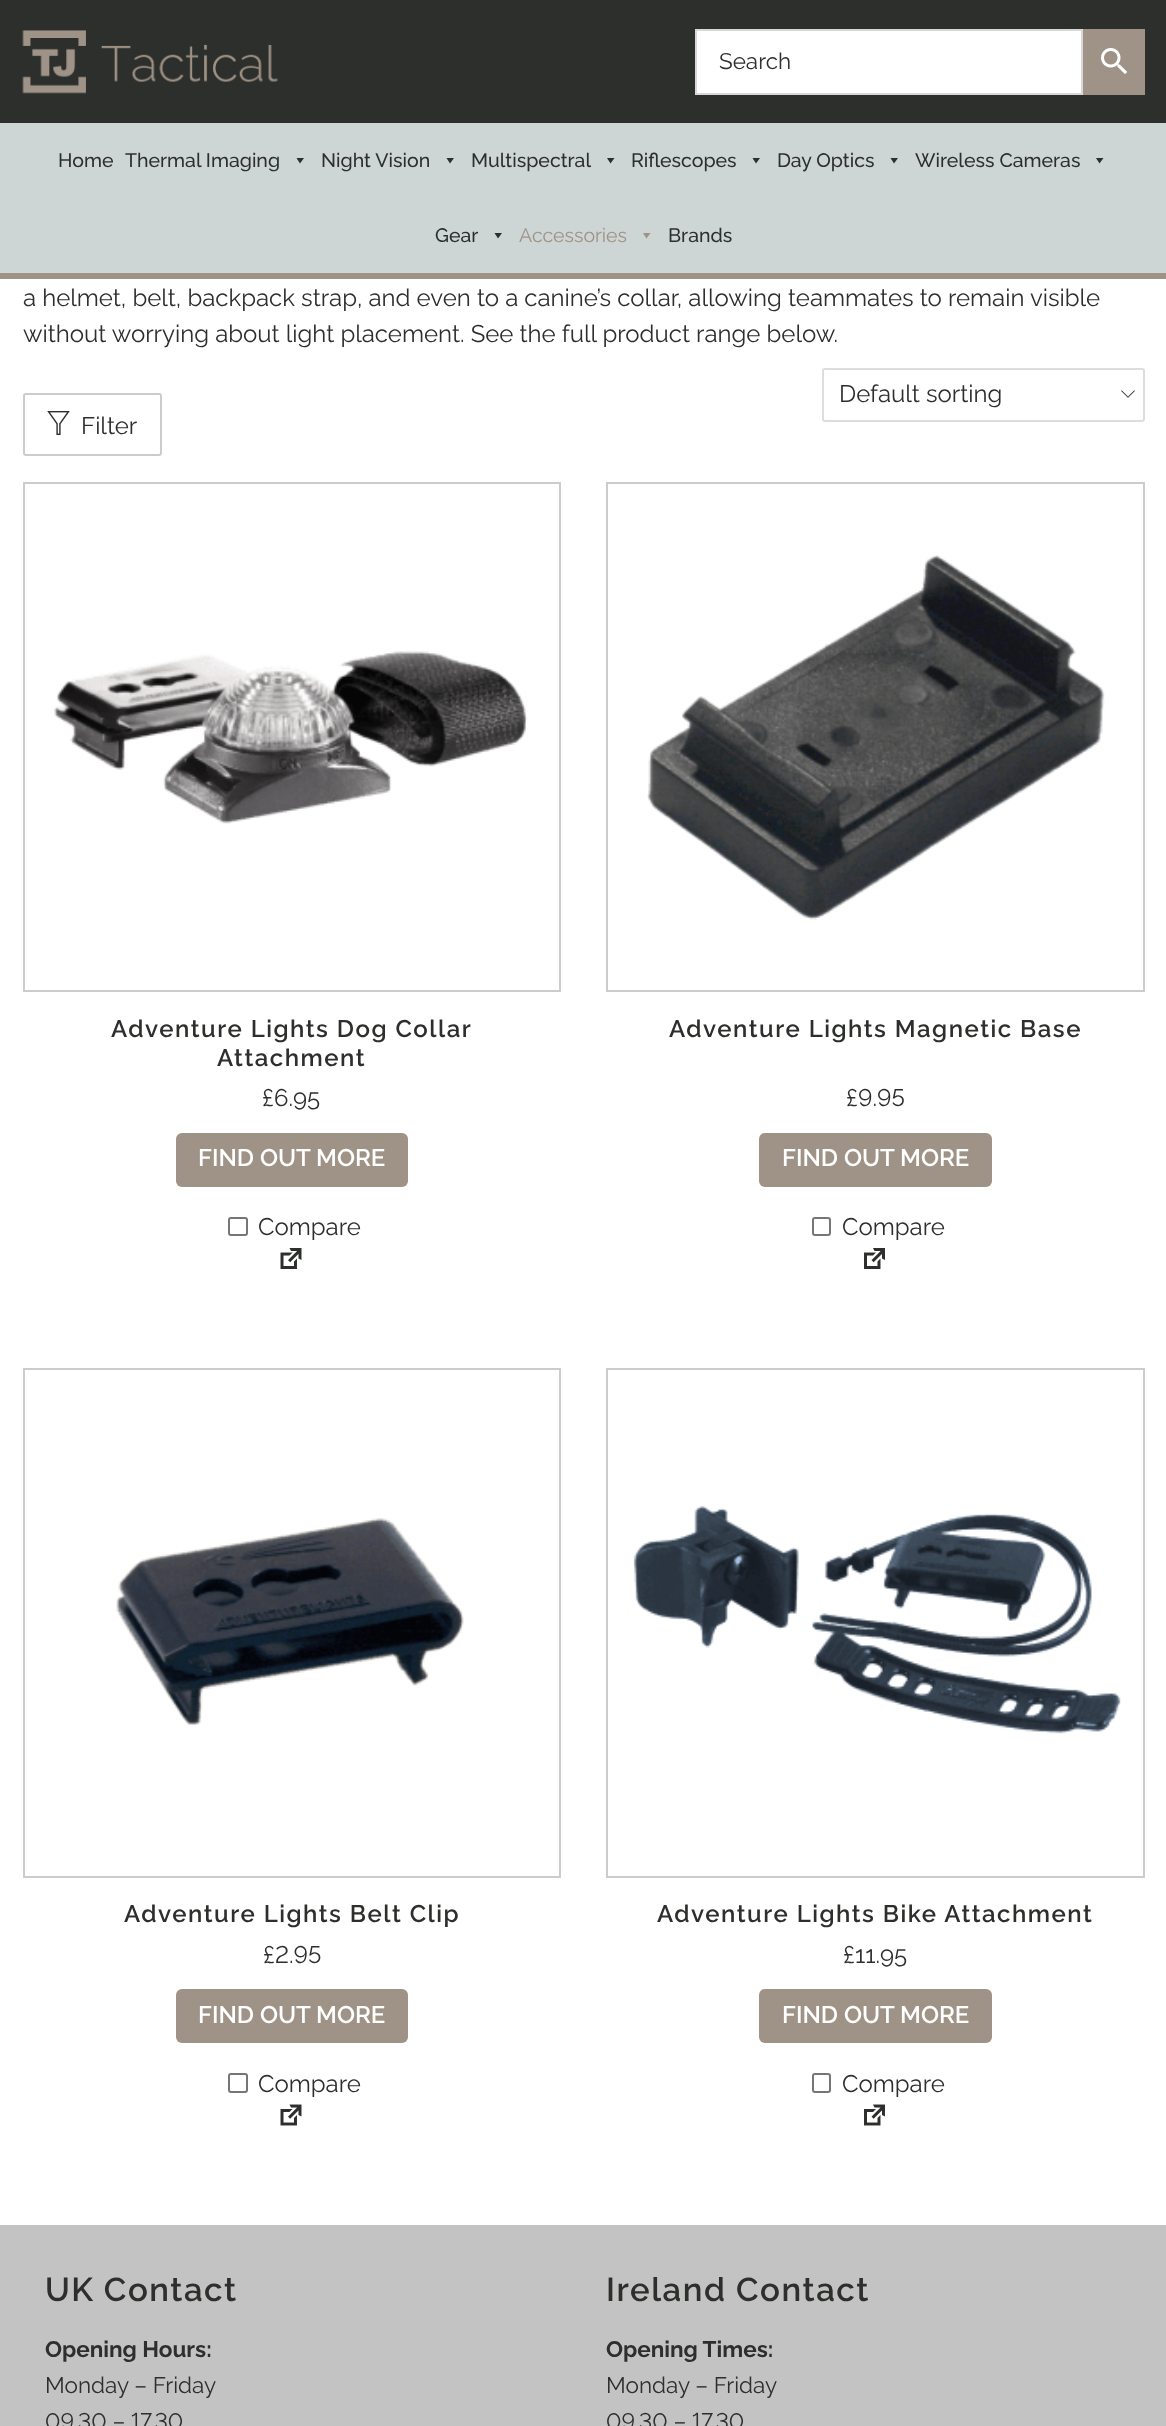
<svg xmlns="http://www.w3.org/2000/svg" width="1166" height="2426" viewBox="0 0 1166 2426">
  <rect width="100%" height="100%" fill="#ffffff"/>
  <rect x="0" y="0" width="1166" height="123" fill="#2d2f2c"/>
  <image x="22" y="30" width="256" height="64" href="img1.png"/>
  <rect x="696" y="30" width="386" height="64" fill="#ffffff" stroke="#d8d8d8" stroke-width="2"/>
  <text x="719" y="69" font-family="Raleway" font-size="22.5" font-weight="100" fill="#2d2f2c">Search</text>
  <rect x="1083" y="29" width="62" height="66" fill="#9e9386"/>
  <image x="1101" y="48" width="26" height="26" href="img2.png"/>
  <rect x="0" y="123" width="1166" height="150" fill="#cdd5d5"/>
  <rect x="0" y="273" width="1166" height="6" fill="#9e9386"/>
  <text x="58" y="167" font-family="Raleway" font-size="19.5" font-weight="500" fill="#2d2f2c">Home</text>
  <text x="125" y="167" font-family="Raleway" font-size="19.5" font-weight="500" fill="#2d2f2c">Thermal Imaging</text>
  <path d="M304 158L300 163.5L296.5 158Z" fill="#2d2f2c"/>
  <text x="321" y="167" font-family="Raleway" font-size="19.5" font-weight="500" fill="#2d2f2c">Night Vision</text>
  <path d="M454 158L450 163.5L446.5 158Z" fill="#2d2f2c"/>
  <text x="471" y="167" font-family="Raleway" font-size="19.5" font-weight="500" fill="#2d2f2c">Multispectral</text>
  <path d="M614.5 158L610.5 163.5L607 158Z" fill="#2d2f2c"/>
  <text x="631" y="167" font-family="Raleway" font-size="19.5" font-weight="500" fill="#2d2f2c">Riflescopes</text>
  <path d="M760 158L756 163.5L752.5 158Z" fill="#2d2f2c"/>
  <text x="777" y="167" font-family="Raleway" font-size="19.5" font-weight="500" fill="#2d2f2c">Day Optics</text>
  <path d="M898 158L894 163.5L890.5 158Z" fill="#2d2f2c"/>
  <text x="915" y="167" font-family="Raleway" font-size="19.5" font-weight="500" fill="#2d2f2c">Wireless Cameras</text>
  <path d="M1103.5 158L1099.5 163.5L1096 158Z" fill="#2d2f2c"/>
  <text x="435" y="242" font-family="Raleway" font-size="19.5" font-weight="500" fill="#2d2f2c">Gear</text>
  <path d="M502 233L498 238.5L494.5 233Z" fill="#2d2f2c"/>
  <text x="519" y="242" font-family="Raleway" font-size="19.5" font-weight="100" fill="#9e9386">Accessories</text>
  <path d="M650.5 233L646.5 238.5L643 233Z" fill="#9e9386"/>
  <text x="668" y="242" font-family="Raleway" font-size="19.5" font-weight="500" fill="#2d2f2c">Brands</text>
  <text x="23" y="306" font-family="Raleway" font-size="24" font-weight="100" fill="#2d2f2c">a helmet, belt, backpack strap, and even to a canine’s collar, allowing teammates to remain visible</text>
  <text x="23" y="342" font-family="Raleway" font-size="24" font-weight="100" fill="#2d2f2c">without worrying about light placement. See the full product range below.</text>
  <rect x="823" y="369" width="321" height="52" rx="2" fill="none" stroke="#dddddd" stroke-width="2"/>
  <text x="839" y="402" font-family="Raleway" font-size="24" font-weight="100" fill="#2d2f2c">Default sorting</text>
  <image x="1121" y="390" width="14" height="8" href="img3.png"/>
  <rect x="24" y="394" width="137" height="61" rx="2" fill="none" stroke="#cccccc" stroke-width="2"/>
  <image x="47" y="411" width="23" height="24" href="img4.png"/>
  <text x="81" y="434" font-family="Raleway" font-size="24" font-weight="100" fill="#2d2f2c">Filter</text>
  <rect x="24" y="483" width="536" height="508" fill="none" stroke="#cccccc" stroke-width="2"/>
  <image x="54" y="651" width="474" height="173" href="img5.png"/>
  <text x="111" y="1037" font-family="Raleway" font-size="24" font-weight="600" letter-spacing="1.5" fill="#2d2f2c">Adventure Lights Dog Collar</text>
  <text x="217" y="1066" font-family="Raleway" font-size="24" font-weight="600" letter-spacing="1.5" fill="#2d2f2c">Attachment</text>
  <text x="262" y="1106" font-family="Raleway" font-size="24" font-weight="100" fill="#2d2f2c">£6.95</text>
  <rect x="176" y="1133" width="232" height="54" rx="6" fill="#9e9386"/>
  <text x="198" y="1166" font-family="Raleway" font-size="24" font-weight="600" fill="#ffffff">FIND OUT MORE</text>
  <rect x="229" y="1218" width="18" height="17" rx="2" fill="none" stroke="#767676" stroke-width="2"/>
  <text x="258" y="1235" font-family="Raleway" font-size="24" font-weight="100" fill="#2d2f2c">Compare</text>
  <image x="280" y="1248" width="22" height="21" href="img6.png"/>
  <rect x="607" y="483" width="537" height="508" fill="none" stroke="#cccccc" stroke-width="2"/>
  <image x="647" y="555" width="458" height="365" href="img7.png"/>
  <text x="669" y="1037" font-family="Raleway" font-size="24" font-weight="600" letter-spacing="1.5" fill="#2d2f2c">Adventure Lights Magnetic Base</text>
  <text x="846" y="1106" font-family="Raleway" font-size="24" font-weight="100" fill="#2d2f2c">£</text>
  <text x="858" y="1106" font-family="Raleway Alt" font-size="24" font-weight="100" fill="#2d2f2c">9.95</text>
  <rect x="759" y="1133" width="233" height="54" rx="6" fill="#9e9386"/>
  <text x="782" y="1166" font-family="Raleway" font-size="24" font-weight="600" fill="#ffffff">FIND OUT MORE</text>
  <rect x="813" y="1218" width="17" height="17" rx="2" fill="none" stroke="#767676" stroke-width="2"/>
  <text x="842" y="1235" font-family="Raleway" font-size="24" font-weight="100" fill="#2d2f2c">Compare</text>
  <image x="864" y="1248" width="21" height="21" href="img8.png"/>
  <rect x="24" y="1369" width="536" height="508" fill="none" stroke="#cccccc" stroke-width="2"/>
  <image x="116" y="1518" width="348" height="208" href="img9.png"/>
  <text x="124" y="1922" font-family="Raleway" font-size="24" font-weight="600" letter-spacing="1.5" fill="#2d2f2c">Adventure Lights Belt Clip</text>
  <text x="263" y="1963" font-family="Raleway" font-size="24" font-weight="100" fill="#2d2f2c">£</text>
  <text x="275" y="1963" font-family="Raleway Alt" font-size="24" font-weight="100" fill="#2d2f2c">2.95</text>
  <rect x="176" y="1989" width="232" height="54" rx="6" fill="#9e9386"/>
  <text x="198" y="2023" font-family="Raleway" font-size="24" font-weight="600" fill="#ffffff">FIND OUT MORE</text>
  <rect x="229" y="2074" width="18" height="18" rx="2" fill="none" stroke="#767676" stroke-width="2"/>
  <text x="258" y="2092" font-family="Raleway" font-size="24" font-weight="100" fill="#2d2f2c">Compare</text>
  <image x="280" y="2104" width="22" height="22" href="img10.png"/>
  <rect x="607" y="1369" width="537" height="508" fill="none" stroke="#cccccc" stroke-width="2"/>
  <image x="633" y="1506" width="488" height="228" href="img11.png"/>
  <text x="657" y="1922" font-family="Raleway" font-size="24" font-weight="600" letter-spacing="1.5" fill="#2d2f2c">Adventure Lights Bike Attachment</text>
  <text x="843" y="1963" font-family="Raleway" font-size="24" font-weight="100" fill="#2d2f2c">£11.95</text>
  <rect x="759" y="1989" width="233" height="54" rx="6" fill="#9e9386"/>
  <text x="782" y="2023" font-family="Raleway" font-size="24" font-weight="600" fill="#ffffff">FIND OUT MORE</text>
  <rect x="813" y="2074" width="17" height="18" rx="2" fill="none" stroke="#767676" stroke-width="2"/>
  <text x="842" y="2092" font-family="Raleway" font-size="24" font-weight="100" fill="#2d2f2c">Compare</text>
  <image x="864" y="2104" width="21" height="22" href="img12.png"/>
  <rect x="0" y="2225" width="1166" height="201" fill="#c3c3c3"/>
  <text x="45" y="2301" font-family="Raleway" font-size="33" font-weight="600" letter-spacing="1.5" fill="#2d2f2c">UK Contact</text>
  <text x="45" y="2357" font-family="Raleway" font-size="22.5" font-weight="bold" fill="#2d2f2c">Opening Hours:</text>
  <text x="45" y="2393" font-family="Raleway" font-size="22.5" font-weight="100" fill="#2d2f2c">Monday – Friday</text>
  <text x="45" y="2429" font-family="Raleway Alt" font-size="22.5" font-weight="100" fill="#2d2f2c">09.30 – 17.30</text>
  <text x="606" y="2301" font-family="Raleway" font-size="33" font-weight="600" letter-spacing="1.5" fill="#2d2f2c">Ireland Contact</text>
  <text x="606" y="2357" font-family="Raleway" font-size="22.5" font-weight="bold" fill="#2d2f2c">Opening Times:</text>
  <text x="606" y="2393" font-family="Raleway" font-size="22.5" font-weight="100" fill="#2d2f2c">Monday – Friday</text>
  <text x="606" y="2429" font-family="Raleway Alt" font-size="22.5" font-weight="100" fill="#2d2f2c">09.30 – 17.30</text>
</svg>
